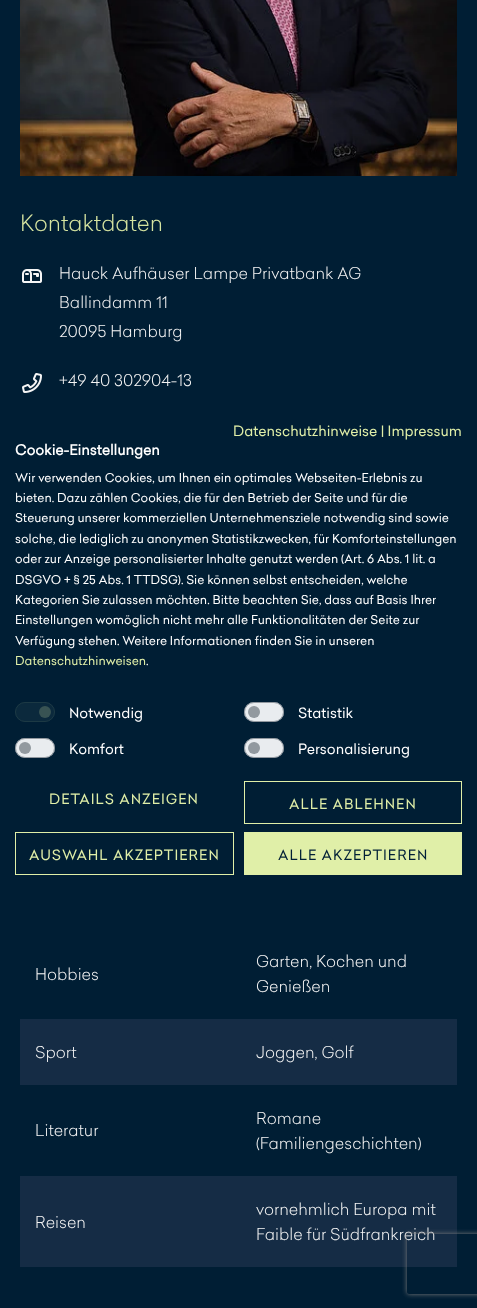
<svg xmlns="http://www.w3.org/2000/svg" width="477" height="1308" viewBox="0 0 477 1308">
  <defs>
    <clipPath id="clip1"><path d="M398 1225H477V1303H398ZM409 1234H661C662 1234 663 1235 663 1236V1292C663 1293 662 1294 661 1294H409C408 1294 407 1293 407 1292V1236C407 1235 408 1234 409 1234Z" clip-rule="evenodd"/></clipPath>
    <filter id="blur1" x="-50%" y="-200%" width="200%" height="500%"><feGaussianBlur stdDeviation="2.5"/></filter>
  </defs>
  <rect width="100%" height="100%" fill="#001e34"/>
  <image x="20" y="0" width="437" height="176" href="img1.png"/>
  <text x="20" y="231" font-family="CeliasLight" font-size="22" font-weight="300" fill="#d7e5a1">Kontaktdaten</text>
  <image x="22" y="269" width="20" height="14" href="img2.png"/>
  <text x="59" y="279" font-family="CeliasLight" font-size="16" font-weight="300" fill="#f5f5f5">Hauck Aufhäuser Lampe Privatbank AG</text>
  <text x="59" y="308" font-family="CeliasLight" font-size="16" font-weight="300" fill="#f5f5f5">Ballindamm 11</text>
  <text x="59" y="337" font-family="CeliasLight" font-size="16" font-weight="300" fill="#f5f5f5">20095 Hamburg</text>
  <image x="22" y="373" width="20" height="20" href="img3.png"/>
  <text x="59" y="386" font-family="CeliasLight" font-size="16" font-weight="300" fill="#f5f5f5">+49 40 302904-13</text>
  <text x="35" y="980" font-family="CeliasLight" font-size="16" font-weight="300" fill="#f5f5f5">Hobbies</text>
  <text x="256" y="967" font-family="CeliasLight" font-size="16" font-weight="300" fill="#f5f5f5">Garten, Kochen und</text>
  <text x="256" y="992" font-family="CeliasLight" font-size="16" font-weight="300" fill="#f5f5f5">Genießen</text>
  <rect x="20" y="1019" width="437" height="66" fill="#152c45"/>
  <text x="35" y="1058" font-family="CeliasLight" font-size="16" font-weight="300" fill="#f5f5f5">Sport</text>
  <text x="256" y="1058" font-family="CeliasLight" font-size="16" font-weight="300" fill="#f5f5f5">Joggen, Golf</text>
  <text x="35" y="1136" font-family="CeliasLight" font-size="16" font-weight="300" fill="#f5f5f5">Literatur</text>
  <text x="256" y="1124" font-family="CeliasLight" font-size="16" font-weight="300" fill="#f5f5f5">Romane</text>
  <text x="256" y="1149" font-family="CeliasLight" font-size="16" font-weight="300" fill="#f5f5f5">(Familiengeschichten)</text>
  <rect x="20" y="1176" width="437" height="91" fill="#152c45"/>
  <text x="35" y="1228" font-family="CeliasLight" font-size="16" font-weight="300" fill="#f5f5f5">Reisen</text>
  <text x="256" y="1215" font-family="CeliasLight" font-size="16" font-weight="300" fill="#f5f5f5">vornehmlich Europa mit</text>
  <text x="256" y="1240" font-family="CeliasLight" font-size="16" font-weight="300" fill="#f5f5f5">Faible für Südfrankreich</text>
  <text x="233" y="436" font-family="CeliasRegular" font-size="14" fill="#e0efa8">Datenschutzhinweise | Impressum</text>
  <text x="15" y="455" font-family="CeliasRegular" font-size="14" font-weight="bold" fill="#ffffff">Cookie-Einstellungen</text>
  <text x="15" y="482" font-family="CeliasRegular" font-size="12" fill="#ffffff">Wir verwenden Cookies, um Ihnen ein optimales Webseiten-Erlebnis zu</text>
  <text x="15" y="502" font-family="CeliasRegular" font-size="12" fill="#ffffff">bieten. Dazu zählen Cookies, die für den Betrieb der Seite und für die</text>
  <text x="15" y="522" font-family="CeliasRegular" font-size="12" fill="#ffffff">Steuerung unserer kommerziellen Unternehmensziele notwendig sind sowie</text>
  <text x="15" y="543" font-family="CeliasRegular" font-size="12" fill="#ffffff">solche, die lediglich zu anonymen Statistikzwecken, für Komforteinstellungen</text>
  <text x="15" y="563" font-family="CeliasRegular" font-size="12" fill="#ffffff">oder zur Anzeige personalisierter Inhalte genutzt werden (Art. 6 Abs. 1 lit. a</text>
  <text x="15" y="584" font-family="CeliasRegular" font-size="12" fill="#ffffff">DSGVO + § 25 Abs. 1 TTDSG). Sie können selbst entscheiden, welche</text>
  <text x="15" y="604" font-family="CeliasRegular" font-size="12" fill="#ffffff">Kategorien Sie zulassen möchten. Bitte beachten Sie, dass auf Basis Ihrer</text>
  <text x="15" y="624" font-family="CeliasRegular" font-size="12" fill="#ffffff">Einstellungen womöglich nicht mehr alle Funktionalitäten der Seite zur</text>
  <text x="15" y="645" font-family="CeliasRegular" font-size="12" fill="#ffffff">Verfügung stehen. Weitere Informationen finden Sie in unseren</text>
  <text x="15" y="665" font-family="CeliasRegular" font-size="12" fill="#e0efa8">Datenschutzhinweisen</text>
  <text x="146" y="665" font-family="CeliasRegular" font-size="12" fill="#ffffff">.</text>
  <rect x="15" y="702" width="40" height="20" rx="10" fill="#0b293c"/>
  <circle cx="45" cy="712" r="6" fill="#385353"/>
  <rect x="15.5" y="702.5" width="39" height="19" rx="9.5" fill="none" stroke="#1c3944"/>
  <text x="69" y="718" font-family="CeliasRegular" font-size="14" fill="#ffffff">Notwendig</text>
  <rect x="244" y="702" width="40" height="20" rx="10" fill="#e9ecef"/>
  <circle cx="254" cy="712" r="6" fill="#92999f"/>
  <rect x="244.5" y="702.5" width="39" height="19" rx="9.5" fill="none" stroke="#6c757d" stroke-opacity="0.7"/>
  <text x="298" y="718" font-family="CeliasRegular" font-size="14" fill="#ffffff">Statistik</text>
  <rect x="15" y="738" width="40" height="20" rx="10" fill="#e9ecef"/>
  <circle cx="25" cy="748" r="6" fill="#92999f"/>
  <rect x="15.5" y="738.5" width="39" height="19" rx="9.5" fill="none" stroke="#6c757d" stroke-opacity="0.7"/>
  <text x="69" y="754" font-family="CeliasRegular" font-size="14" fill="#ffffff">Komfort</text>
  <rect x="244" y="738" width="40" height="20" rx="10" fill="#e9ecef"/>
  <circle cx="254" cy="748" r="6" fill="#92999f"/>
  <rect x="244.5" y="738.5" width="39" height="19" rx="9.5" fill="none" stroke="#6c757d" stroke-opacity="0.7"/>
  <text x="298" y="754" font-family="CeliasRegular" font-size="14" fill="#ffffff">Personalisierung</text>
  <text x="49" y="804" font-family="CeliasRegular" font-size="14" letter-spacing="1" fill="#e0efa8">DETAILS ANZEIGEN</text>
  <rect x="244.5" y="781.5" width="217" height="42" fill="none" stroke="#e0efa8"/>
  <text x="289" y="809" font-family="CeliasRegular" font-size="14" letter-spacing="1" fill="#e0efa8">ALLE ABLEHNEN</text>
  <rect x="15.5" y="832.5" width="218" height="42" fill="none" stroke="#e0efa8"/>
  <text x="29" y="860" font-family="CeliasRegular" font-size="14" letter-spacing="1" fill="#e0efa8">AUSWAHL AKZEPTIEREN</text>
  <rect x="244" y="832" width="218" height="43" fill="#e0efa8"/>
  <text x="278" y="860" font-family="CeliasRegular" font-size="14" letter-spacing="1" fill="#001f36">ALLE AKZEPTIEREN</text>
  <g clip-path="url(#clip1)">
    <rect x="407" y="1234" width="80" height="60" rx="2" fill="#7b7b7b" filter="url(#blur1)"/>
  </g>
</svg>
